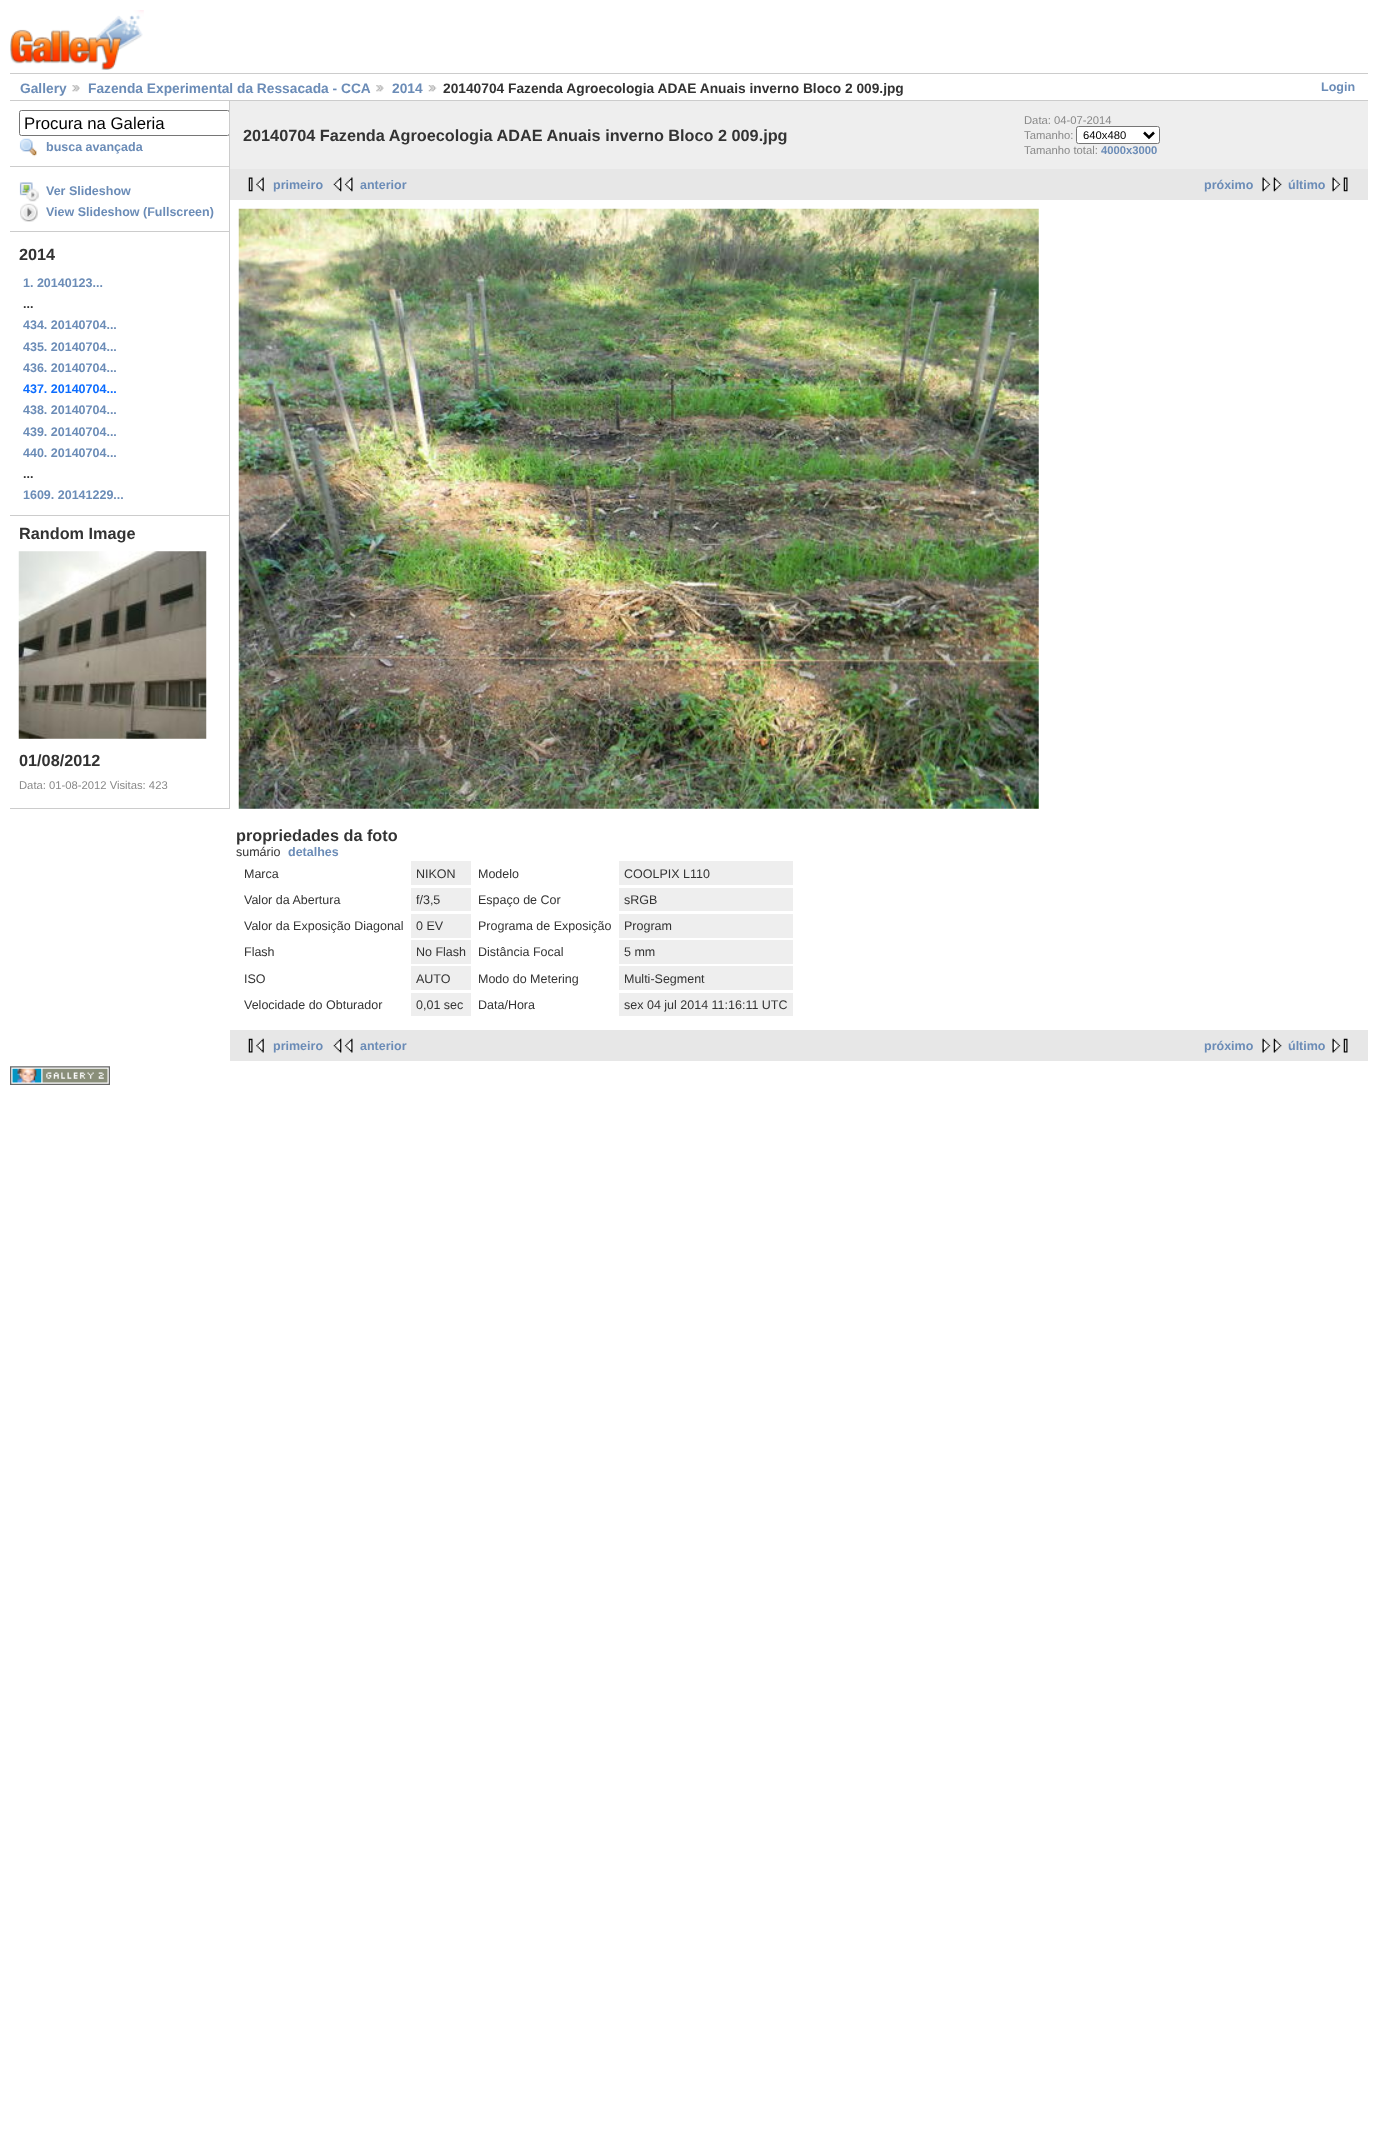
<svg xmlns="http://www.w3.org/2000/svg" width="1377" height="2132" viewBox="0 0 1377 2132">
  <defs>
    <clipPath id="clip1"><rect x="10" y="101" width="219" height="708"/></clipPath>
  </defs>
  <rect width="100%" height="100%" fill="#ffffff"/>
  <image x="10" y="10" width="134" height="60" href="img1.png"/>
  <rect x="10" y="73" width="1358" height="1" fill="#cccccc"/>
  <rect x="10" y="100" width="1358" height="1" fill="#cccccc"/>
  <text x="20" y="93" font-family="Liberation Sans" font-size="13.75" font-weight="bold" fill="#6b8cb7">Gallery</text>
  <image x="72" y="85" width="8" height="7" href="img2.png"/>
  <text x="88" y="93" font-family="Liberation Sans" font-size="13.75" font-weight="bold" fill="#6b8cb7">Fazenda Experimental da Ressacada - CCA</text>
  <image x="376" y="85" width="8" height="7" href="img3.png"/>
  <text x="392" y="93" font-family="Liberation Sans" font-size="13.75" font-weight="bold" fill="#6b8cb7">2014</text>
  <image x="428" y="85" width="9" height="7" href="img4.png"/>
  <text x="443" y="93" font-family="Liberation Sans" font-size="13.75" font-weight="bold" fill="#333333">20140704 Fazenda Agroecologia ADAE Anuais inverno Bloco 2 009.jpg</text>
  <text x="1321" y="91" font-family="Liberation Sans" font-size="12.5" font-weight="bold" fill="#6b8cb7">Login</text>
  <rect x="229" y="101" width="1" height="708" fill="#cccccc"/>
  <rect x="10" y="166" width="219" height="1" fill="#cccccc"/>
  <g clip-path="url(#clip1)">
    <rect x="19.5" y="110.5" width="210" height="25" rx="2" fill="none" stroke="#767676"/>
  </g>
  <text x="24" y="129" font-family="Liberation Sans" font-size="16.75" fill="#000000">Procura na Galeria</text>
  <image x="19" y="138" width="18" height="19" href="img5.png"/>
  <text x="46" y="151" font-family="Liberation Sans" font-size="12.5" font-weight="bold" fill="#6b8cb7">busca avançada</text>
  <rect x="10" y="231" width="219" height="1" fill="#cccccc"/>
  <image x="19" y="182" width="20" height="20" href="img6.png"/>
  <text x="46" y="195" font-family="Liberation Sans" font-size="12.5" font-weight="bold" fill="#6b8cb7">Ver Slideshow</text>
  <image x="20" y="203" width="18" height="19" href="img7.png"/>
  <text x="46" y="216" font-family="Liberation Sans" font-size="12.5" font-weight="bold" fill="#6b8cb7">View Slideshow (Fullscreen)</text>
  <rect x="10" y="515" width="219" height="1" fill="#cccccc"/>
  <text x="19" y="260" font-family="Liberation Sans" font-size="16.25" font-weight="bold" fill="#333333">2014</text>
  <text x="23" y="287" font-family="Liberation Sans" font-size="12.5" font-weight="bold" fill="#6b8cb7">1. 20140123...</text>
  <text x="23" y="308" font-family="Liberation Sans" font-size="12.5" font-weight="bold" fill="#333333">...</text>
  <text x="23" y="329" font-family="Liberation Sans" font-size="12.5" font-weight="bold" fill="#6b8cb7">434. 20140704...</text>
  <text x="23" y="351" font-family="Liberation Sans" font-size="12.5" font-weight="bold" fill="#6b8cb7">435. 20140704...</text>
  <text x="23" y="372" font-family="Liberation Sans" font-size="12.5" font-weight="bold" fill="#6b8cb7">436. 20140704...</text>
  <text x="23" y="393" font-family="Liberation Sans" font-size="12.5" font-weight="bold" fill="#0b6cff">437. 20140704...</text>
  <text x="23" y="414" font-family="Liberation Sans" font-size="12.5" font-weight="bold" fill="#6b8cb7">438. 20140704...</text>
  <text x="23" y="436" font-family="Liberation Sans" font-size="12.5" font-weight="bold" fill="#6b8cb7">439. 20140704...</text>
  <text x="23" y="457" font-family="Liberation Sans" font-size="12.5" font-weight="bold" fill="#6b8cb7">440. 20140704...</text>
  <text x="23" y="478" font-family="Liberation Sans" font-size="12.5" font-weight="bold" fill="#333333">...</text>
  <text x="23" y="499" font-family="Liberation Sans" font-size="12.5" font-weight="bold" fill="#6b8cb7">1609. 20141229...</text>
  <rect x="10" y="808" width="219" height="1" fill="#cccccc"/>
  <text x="19" y="539" font-family="Liberation Sans" font-size="16.25" font-weight="bold" fill="#333333">Random Image</text>
  <image x="18" y="551" width="189" height="188" href="img8.png"/>
  <text x="19" y="766" font-family="Liberation Sans" font-size="16.25" font-weight="bold" fill="#333333">01/08/2012</text>
  <text x="19" y="789" font-family="Liberation Sans" font-size="11.25" fill="#888888">Data: 01-08-2012 Visitas: 423</text>
  <rect x="230" y="101" width="1138" height="68" fill="#eeeeee"/>
  <text x="243" y="141" font-family="Liberation Sans" font-size="16.25" font-weight="bold" fill="#333333">20140704 Fazenda Agroecologia ADAE Anuais inverno Bloco 2 009.jpg</text>
  <text x="1024" y="124" font-family="Liberation Sans" font-size="11.25" fill="#888888">Data: 04-07-2014</text>
  <text x="1024" y="139" font-family="Liberation Sans" font-size="11.25" fill="#888888">Tamanho:</text>
  <rect x="1076.5" y="126.5" width="83" height="17" rx="2" fill="#ffffff" stroke="#767676"/>
  <path d="M1144 132.5L1149 137.5L1154 132.5" fill="none" stroke="#000000" stroke-width="2.5"/>
  <text x="1083" y="139" font-family="Liberation Sans" font-size="11.25" fill="#000000">640x480</text>
  <text x="1024" y="154" font-family="Liberation Sans" font-size="11.25" fill="#888888">Tamanho total:</text>
  <text x="1101" y="154" font-family="Liberation Sans" font-size="11.25" font-weight="bold" fill="#6b8cb7">4000x3000</text>
  <rect x="230" y="169" width="1138" height="31" fill="#e7e7e7"/>
  <image x="248" y="177" width="16" height="15" href="img9.png"/>
  <text x="273" y="189" font-family="Liberation Sans" font-size="12.5" font-weight="bold" fill="#6b8cb7">primeiro</text>
  <image x="333" y="177" width="20" height="15" href="img10.png"/>
  <text x="360" y="189" font-family="Liberation Sans" font-size="12.5" font-weight="bold" fill="#6b8cb7">anterior</text>
  <text x="1204" y="189" font-family="Liberation Sans" font-size="12.5" font-weight="bold" fill="#6b8cb7">próximo</text>
  <image x="1262" y="177" width="20" height="15" href="img11.png"/>
  <text x="1288" y="189" font-family="Liberation Sans" font-size="12.5" font-weight="bold" fill="#6b8cb7">último</text>
  <image x="1332" y="177" width="16" height="15" href="img12.png"/>
  <image x="238" y="208" width="801" height="601" href="img13.png"/>
  <text x="236" y="841" font-family="Liberation Sans" font-size="16.25" font-weight="bold" fill="#333333">propriedades da foto</text>
  <text x="236" y="856" font-family="Liberation Sans" font-size="12.5" fill="#333333">sumário</text>
  <text x="288" y="856" font-family="Liberation Sans" font-size="12.5" font-weight="bold" fill="#6b8cb7">detalhes</text>
  <text x="244" y="878" font-family="Liberation Sans" font-size="12.5" fill="#333333">Marca</text>
  <rect x="411" y="861" width="60" height="24" fill="#eeeeee"/>
  <text x="416" y="878" font-family="Liberation Sans" font-size="12.5" fill="#333333">NIKON</text>
  <text x="478" y="878" font-family="Liberation Sans" font-size="12.5" fill="#333333">Modelo</text>
  <rect x="619" y="861" width="174" height="24" fill="#eeeeee"/>
  <text x="624" y="878" font-family="Liberation Sans" font-size="12.5" fill="#333333">COOLPIX L110</text>
  <text x="244" y="904" font-family="Liberation Sans" font-size="12.5" fill="#333333">Valor da Abertura</text>
  <rect x="411" y="888" width="60" height="23" fill="#eeeeee"/>
  <text x="416" y="904" font-family="Liberation Sans" font-size="12.5" fill="#333333">f/3,5</text>
  <text x="478" y="904" font-family="Liberation Sans" font-size="12.5" fill="#333333">Espaço de Cor</text>
  <rect x="619" y="888" width="174" height="23" fill="#eeeeee"/>
  <text x="624" y="904" font-family="Liberation Sans" font-size="12.5" fill="#333333">sRGB</text>
  <text x="244" y="930" font-family="Liberation Sans" font-size="12.5" fill="#333333">Valor da Exposição Diagonal</text>
  <rect x="411" y="914" width="60" height="24" fill="#eeeeee"/>
  <text x="416" y="930" font-family="Liberation Sans" font-size="12.5" fill="#333333">0 EV</text>
  <text x="478" y="930" font-family="Liberation Sans" font-size="12.5" fill="#333333">Programa de Exposição</text>
  <rect x="619" y="914" width="174" height="24" fill="#eeeeee"/>
  <text x="624" y="930" font-family="Liberation Sans" font-size="12.5" fill="#333333">Program</text>
  <text x="244" y="956" font-family="Liberation Sans" font-size="12.5" fill="#333333">Flash</text>
  <rect x="411" y="940" width="60" height="24" fill="#eeeeee"/>
  <text x="416" y="956" font-family="Liberation Sans" font-size="12.5" fill="#333333">No Flash</text>
  <text x="478" y="956" font-family="Liberation Sans" font-size="12.5" fill="#333333">Distância Focal</text>
  <rect x="619" y="940" width="174" height="24" fill="#eeeeee"/>
  <text x="624" y="956" font-family="Liberation Sans" font-size="12.5" fill="#333333">5 mm</text>
  <text x="244" y="983" font-family="Liberation Sans" font-size="12.5" fill="#333333">ISO</text>
  <rect x="411" y="966" width="60" height="24" fill="#eeeeee"/>
  <text x="416" y="983" font-family="Liberation Sans" font-size="12.5" fill="#333333">AUTO</text>
  <text x="478" y="983" font-family="Liberation Sans" font-size="12.5" fill="#333333">Modo do Metering</text>
  <rect x="619" y="966" width="174" height="24" fill="#eeeeee"/>
  <text x="624" y="983" font-family="Liberation Sans" font-size="12.5" fill="#333333">Multi-Segment</text>
  <text x="244" y="1009" font-family="Liberation Sans" font-size="12.5" fill="#333333">Velocidade do Obturador</text>
  <rect x="411" y="993" width="60" height="23" fill="#eeeeee"/>
  <text x="416" y="1009" font-family="Liberation Sans" font-size="12.5" fill="#333333">0,01 sec</text>
  <text x="478" y="1009" font-family="Liberation Sans" font-size="12.5" fill="#333333">Data/Hora</text>
  <rect x="619" y="993" width="174" height="23" fill="#eeeeee"/>
  <text x="624" y="1009" font-family="Liberation Sans" font-size="12.5" fill="#333333">sex 04 jul 2014 11:16:11 UTC</text>
  <rect x="230" y="1030" width="1138" height="31" fill="#e7e7e7"/>
  <image x="248" y="1038" width="16" height="15" href="img14.png"/>
  <text x="273" y="1050" font-family="Liberation Sans" font-size="12.5" font-weight="bold" fill="#6b8cb7">primeiro</text>
  <image x="333" y="1038" width="20" height="15" href="img15.png"/>
  <text x="360" y="1050" font-family="Liberation Sans" font-size="12.5" font-weight="bold" fill="#6b8cb7">anterior</text>
  <text x="1204" y="1050" font-family="Liberation Sans" font-size="12.5" font-weight="bold" fill="#6b8cb7">próximo</text>
  <image x="1262" y="1038" width="20" height="15" href="img16.png"/>
  <text x="1288" y="1050" font-family="Liberation Sans" font-size="12.5" font-weight="bold" fill="#6b8cb7">último</text>
  <image x="1332" y="1038" width="16" height="15" href="img17.png"/>
  <image x="10" y="1066" width="100" height="19" href="img18.png"/>
</svg>
